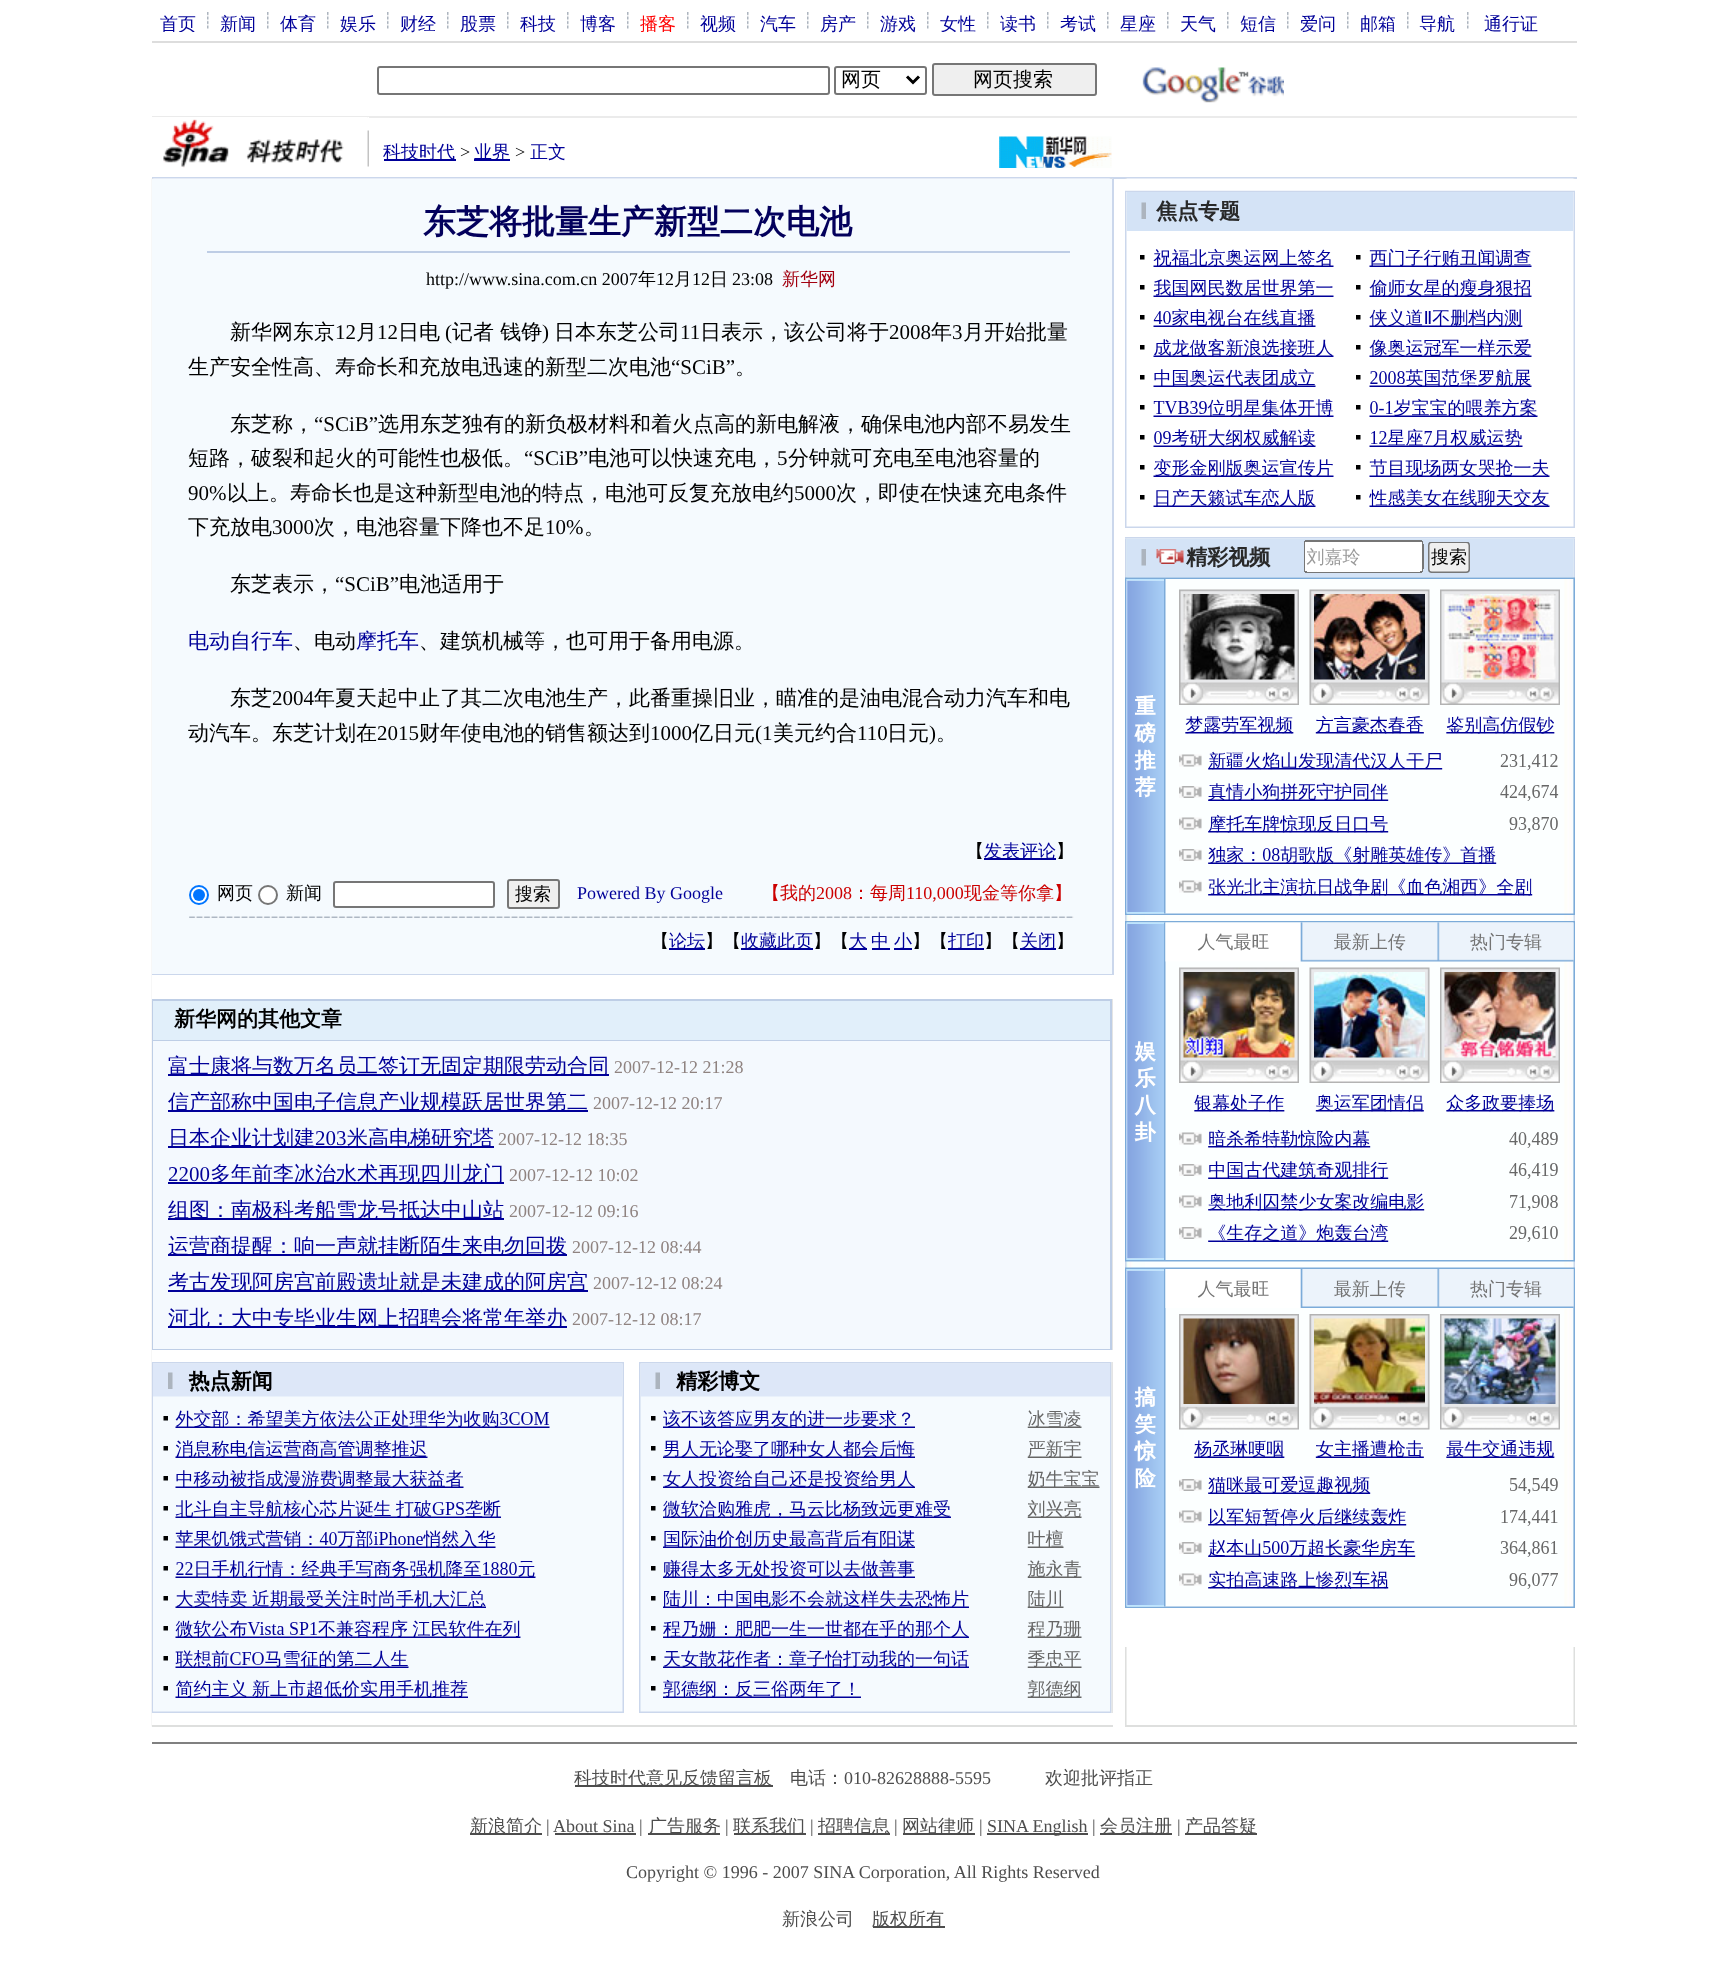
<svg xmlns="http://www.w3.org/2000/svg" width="1726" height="1980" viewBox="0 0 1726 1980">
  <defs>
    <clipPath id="clip1"><rect x="152" y="12" width="54" height="20"/></clipPath>
    <clipPath id="clip2"><rect x="210" y="12" width="56" height="20"/></clipPath>
    <clipPath id="clip3"><rect x="270" y="12" width="56" height="20"/></clipPath>
    <clipPath id="clip4"><rect x="330" y="12" width="56" height="20"/></clipPath>
    <clipPath id="clip5"><rect x="450" y="12" width="56" height="20"/></clipPath>
    <clipPath id="clip6"><rect x="510" y="12" width="56" height="20"/></clipPath>
    <clipPath id="clip7"><rect x="570" y="12" width="56" height="20"/></clipPath>
    <clipPath id="clip8"><rect x="630" y="12" width="56" height="20"/></clipPath>
    <clipPath id="clip9"><rect x="690" y="12" width="56" height="20"/></clipPath>
    <clipPath id="clip10"><rect x="750" y="12" width="56" height="20"/></clipPath>
    <clipPath id="clip11"><rect x="930" y="12" width="56" height="20"/></clipPath>
    <clipPath id="clip12"><rect x="990" y="12" width="56" height="20"/></clipPath>
    <clipPath id="clip13"><rect x="1050" y="12" width="56" height="20"/></clipPath>
    <clipPath id="clip14"><rect x="1230" y="12" width="56" height="20"/></clipPath>
    <clipPath id="clip15"><rect x="1290" y="12" width="56" height="20"/></clipPath>
    <clipPath id="clip16"><rect x="1350" y="12" width="56" height="20"/></clipPath>
    <clipPath id="clip17"><rect x="1410" y="12" width="56" height="20"/></clipPath>
    <clipPath id="clip18"><rect x="1470" y="12" width="84" height="20"/></clipPath>
  </defs>
  <rect width="100%" height="100%" fill="#ffffff"/>
  <rect x="152" y="41" width="1425" height="2" fill="#dddddd"/>
  <g clip-path="url(#clip1)">
    <text x="160" y="30" font-family="WenQuanYi Zen Hei" font-size="18" font-weight="500" fill="#000099">首页</text>
  </g>
  <image x="207" y="12" width="2" height="17" href="img1.png"/>
  <g clip-path="url(#clip2)">
    <text x="220" y="30" font-family="WenQuanYi Zen Hei" font-size="18" font-weight="500" fill="#000099">新闻</text>
  </g>
  <image x="267" y="12" width="2" height="17" href="img1.png"/>
  <g clip-path="url(#clip3)">
    <text x="280" y="30" font-family="WenQuanYi Zen Hei" font-size="18" font-weight="500" fill="#000099">体育</text>
  </g>
  <image x="327" y="12" width="2" height="17" href="img1.png"/>
  <g clip-path="url(#clip4)">
    <text x="340" y="30" font-family="WenQuanYi Zen Hei" font-size="18" font-weight="500" fill="#000099">娱乐</text>
  </g>
  <image x="387" y="12" width="2" height="17" href="img1.png"/>
  <text x="400" y="30" font-family="WenQuanYi Zen Hei" font-size="18" font-weight="500" fill="#000099">财经</text>
  <image x="447" y="12" width="2" height="17" href="img1.png"/>
  <g clip-path="url(#clip5)">
    <text x="460" y="30" font-family="WenQuanYi Zen Hei" font-size="18" font-weight="500" fill="#000099">股票</text>
  </g>
  <image x="507" y="12" width="2" height="17" href="img1.png"/>
  <g clip-path="url(#clip6)">
    <text x="520" y="30" font-family="WenQuanYi Zen Hei" font-size="18" font-weight="500" fill="#000099">科技</text>
  </g>
  <image x="567" y="12" width="2" height="17" href="img1.png"/>
  <g clip-path="url(#clip7)">
    <text x="580" y="30" font-family="WenQuanYi Zen Hei" font-size="18" font-weight="500" fill="#000099">博客</text>
  </g>
  <image x="627" y="12" width="2" height="17" href="img1.png"/>
  <g clip-path="url(#clip8)">
    <text x="640" y="30" font-family="WenQuanYi Zen Hei" font-size="18" font-weight="500" fill="#ff0000">播客</text>
  </g>
  <image x="687" y="12" width="2" height="17" href="img1.png"/>
  <g clip-path="url(#clip9)">
    <text x="700" y="30" font-family="WenQuanYi Zen Hei" font-size="18" font-weight="500" fill="#000099">视频</text>
  </g>
  <image x="747" y="12" width="2" height="17" href="img1.png"/>
  <g clip-path="url(#clip10)">
    <text x="760" y="30" font-family="WenQuanYi Zen Hei" font-size="18" font-weight="500" fill="#000099">汽车</text>
  </g>
  <image x="807" y="12" width="2" height="17" href="img1.png"/>
  <text x="820" y="30" font-family="WenQuanYi Zen Hei" font-size="18" font-weight="500" fill="#000099">房产</text>
  <image x="867" y="12" width="2" height="17" href="img1.png"/>
  <text x="880" y="30" font-family="WenQuanYi Zen Hei" font-size="18" font-weight="500" fill="#000099">游戏</text>
  <image x="927" y="12" width="2" height="17" href="img1.png"/>
  <g clip-path="url(#clip11)">
    <text x="940" y="30" font-family="WenQuanYi Zen Hei" font-size="18" font-weight="500" fill="#000099">女性</text>
  </g>
  <image x="987" y="12" width="2" height="17" href="img1.png"/>
  <g clip-path="url(#clip12)">
    <text x="1000" y="30" font-family="WenQuanYi Zen Hei" font-size="18" font-weight="500" fill="#000099">读书</text>
  </g>
  <image x="1047" y="12" width="2" height="17" href="img1.png"/>
  <g clip-path="url(#clip13)">
    <text x="1060" y="30" font-family="WenQuanYi Zen Hei" font-size="18" font-weight="500" fill="#000099">考试</text>
  </g>
  <image x="1107" y="12" width="2" height="17" href="img1.png"/>
  <text x="1120" y="30" font-family="WenQuanYi Zen Hei" font-size="18" font-weight="500" fill="#000099">星座</text>
  <image x="1167" y="12" width="2" height="17" href="img1.png"/>
  <text x="1180" y="30" font-family="WenQuanYi Zen Hei" font-size="18" font-weight="500" fill="#000099">天气</text>
  <image x="1227" y="12" width="2" height="17" href="img1.png"/>
  <g clip-path="url(#clip14)">
    <text x="1240" y="30" font-family="WenQuanYi Zen Hei" font-size="18" font-weight="500" fill="#000099">短信</text>
  </g>
  <image x="1287" y="12" width="2" height="17" href="img1.png"/>
  <g clip-path="url(#clip15)">
    <text x="1300" y="30" font-family="WenQuanYi Zen Hei" font-size="18" font-weight="500" fill="#000099">爱问</text>
  </g>
  <image x="1347" y="12" width="2" height="17" href="img1.png"/>
  <g clip-path="url(#clip16)">
    <text x="1360" y="30" font-family="WenQuanYi Zen Hei" font-size="18" font-weight="500" fill="#000099">邮箱</text>
  </g>
  <image x="1407" y="12" width="2" height="17" href="img1.png"/>
  <g clip-path="url(#clip17)">
    <text x="1419" y="30" font-family="WenQuanYi Zen Hei" font-size="18" font-weight="500" fill="#000099">导航</text>
  </g>
  <image x="1467" y="12" width="2" height="17" href="img1.png"/>
  <g clip-path="url(#clip18)">
    <text x="1484" y="30" font-family="WenQuanYi Zen Hei" font-size="18" font-weight="500" fill="#000099">通行证</text>
  </g>
  <rect x="152" y="116" width="1425" height="2" fill="#ebebeb"/>
  <rect x="378" y="67" width="451" height="27" rx="2" fill="none" stroke="#767676" stroke-width="2"/>
  <rect x="835" y="67" width="91" height="27" rx="2" fill="none" stroke="#767676" stroke-width="2"/>
  <path d="M907 76.5L913 82.5L919 76.5" fill="none" stroke="#000000" stroke-width="3"/>
  <text x="841" y="86" font-family="WenQuanYi Zen Hei" font-size="20" font-weight="500" fill="#000000">网页</text>
  <rect x="933" y="64" width="163" height="31" rx="2" fill="#efefef" stroke="#767676" stroke-width="2"/>
  <text x="973" y="86" font-family="WenQuanYi Zen Hei" font-size="20" font-weight="500" fill="#000000">网页搜索</text>
  <image x="1142" y="67" width="142" height="36" href="img2.png"/>
  <image x="152" y="117" width="216" height="51" href="img3.png"/>
  <image x="367" y="117" width="2" height="50" href="img4.png"/>
  <rect x="384" y="159" width="72" height="2" fill="#000099"/>
  <text x="383" y="158" font-family="WenQuanYi Zen Hei" font-size="18" font-weight="500" fill="#000099">科技时代</text>
  <text x="460" y="158" font-family="Liberation Serif" font-size="18" fill="#000000">&gt;</text>
  <rect x="474" y="159" width="36" height="2" fill="#000099"/>
  <text x="474" y="158" font-family="WenQuanYi Zen Hei" font-size="18" font-weight="500" fill="#000099">业界</text>
  <text x="515" y="158" font-family="Liberation Serif" font-size="18" fill="#000000">&gt;</text>
  <text x="530" y="158" font-family="WenQuanYi Zen Hei" font-size="18" font-weight="500" fill="#000099">正文</text>
  <image x="999" y="136" width="113" height="32" href="img5.png"/>
  <rect x="152" y="177" width="1425" height="2" fill="#cbd7ec"/>
  <image x="151" y="178" width="962" height="1549" href="img6.png"/>
  <rect x="152" y="1725" width="961" height="2" fill="#dedfde"/>
  <rect x="152" y="179" width="960" height="795" fill="#f5fafe"/>
  <rect x="1112" y="179" width="2" height="796" fill="#cbd7ec"/>
  <rect x="152" y="974" width="961" height="1" fill="#cbd7ec"/>
  <rect x="207" y="251" width="863" height="2" fill="#becde5"/>
  <text x="423" y="233" font-family="WenQuanYi Zen Hei" font-size="33" font-weight="bold" fill="#03005c">东芝将批量生产新型二次电池</text>
  <text x="426" y="285" font-family="Liberation Serif" font-size="18" fill="#000000">http://www.sina.com.cn 2007</text>
  <text x="638" y="285" font-family="WenQuanYi Zen Hei" font-size="18" font-weight="500" fill="#000000">年</text>
  <text x="656" y="285" font-family="Liberation Serif" font-size="18" fill="#000000">12</text>
  <text x="674" y="285" font-family="WenQuanYi Zen Hei" font-size="18" font-weight="500" fill="#000000">月</text>
  <text x="692" y="285" font-family="Liberation Serif" font-size="18" fill="#000000">12</text>
  <text x="710" y="285" font-family="WenQuanYi Zen Hei" font-size="18" font-weight="500" fill="#000000">日</text>
  <text x="732" y="285" font-family="Liberation Serif" font-size="18" fill="#000000">23:08</text>
  <text x="782" y="285" font-family="WenQuanYi Zen Hei" font-size="18" font-weight="500" fill="#a20010">新华网</text>
  <text x="230" y="339" font-family="WenQuanYi Zen Hei" font-size="21" font-weight="500" fill="#000000">新华网东京</text>
  <text x="335" y="339" font-family="Liberation Serif" font-size="21" fill="#000000">12</text>
  <text x="356" y="339" font-family="WenQuanYi Zen Hei" font-size="21" font-weight="500" fill="#000000">月</text>
  <text x="377" y="339" font-family="Liberation Serif" font-size="21" fill="#000000">12</text>
  <text x="398" y="339" font-family="WenQuanYi Zen Hei" font-size="21" font-weight="500" fill="#000000">日电</text>
  <text x="445" y="339" font-family="Liberation Serif" font-size="21" fill="#000000">(</text>
  <text x="452" y="339" font-family="WenQuanYi Zen Hei" font-size="21" font-weight="500" fill="#000000">记者 钱铮</text>
  <text x="542" y="339" font-family="Liberation Serif" font-size="21" fill="#000000">)</text>
  <text x="554" y="339" font-family="WenQuanYi Zen Hei" font-size="21" font-weight="500" fill="#000000">日本东芝公司</text>
  <text x="680" y="339" font-family="Liberation Serif" font-size="21" fill="#000000">11</text>
  <text x="700" y="339" font-family="WenQuanYi Zen Hei" font-size="21" font-weight="500" fill="#000000">日表示，该公司将于</text>
  <text x="889" y="339" font-family="Liberation Serif" font-size="21" fill="#000000">2008</text>
  <text x="931" y="339" font-family="WenQuanYi Zen Hei" font-size="21" font-weight="500" fill="#000000">年</text>
  <text x="952" y="339" font-family="Liberation Serif" font-size="21" fill="#000000">3</text>
  <text x="963" y="339" font-family="WenQuanYi Zen Hei" font-size="21" font-weight="500" fill="#000000">月开始批量</text>
  <text x="188" y="374" font-family="WenQuanYi Zen Hei" font-size="21" font-weight="500" fill="#000000">生产安全性高、寿命长和充放电迅速的新型二次电池</text>
  <text x="671" y="374" font-family="Liberation Serif" font-size="21" fill="#000000">“SCiB”</text>
  <text x="735" y="374" font-family="WenQuanYi Zen Hei" font-size="21" font-weight="500" fill="#000000">。</text>
  <text x="230" y="431" font-family="WenQuanYi Zen Hei" font-size="21" font-weight="500" fill="#000000">东芝称，</text>
  <text x="314" y="431" font-family="Liberation Serif" font-size="21" fill="#000000">“SCiB”</text>
  <text x="378" y="431" font-family="WenQuanYi Zen Hei" font-size="21" font-weight="500" fill="#000000">选用东芝独有的新负极材料和着火点高的新电解液，确保电池内部不易发生</text>
  <text x="188" y="465" font-family="WenQuanYi Zen Hei" font-size="21" font-weight="500" fill="#000000">短路，破裂和起火的可能性也极低。</text>
  <text x="524" y="465" font-family="Liberation Serif" font-size="21" fill="#000000">“SCiB”</text>
  <text x="588" y="465" font-family="WenQuanYi Zen Hei" font-size="21" font-weight="500" fill="#000000">电池可以快速充电，</text>
  <text x="777" y="465" font-family="Liberation Serif" font-size="21" fill="#000000">5</text>
  <text x="788" y="465" font-family="WenQuanYi Zen Hei" font-size="21" font-weight="500" fill="#000000">分钟就可充电至电池容量的</text>
  <text x="188" y="500" font-family="Liberation Serif" font-size="21" fill="#000000">90%</text>
  <text x="227" y="500" font-family="WenQuanYi Zen Hei" font-size="21" font-weight="500" fill="#000000">以上。寿命长也是这种新型电池的特点，电池可反复充放电约</text>
  <text x="794" y="500" font-family="Liberation Serif" font-size="21" fill="#000000">5000</text>
  <text x="836" y="500" font-family="WenQuanYi Zen Hei" font-size="21" font-weight="500" fill="#000000">次，即使在快速充电条件</text>
  <text x="188" y="534" font-family="WenQuanYi Zen Hei" font-size="21" font-weight="500" fill="#000000">下充放电</text>
  <text x="272" y="534" font-family="Liberation Serif" font-size="21" fill="#000000">3000</text>
  <text x="314" y="534" font-family="WenQuanYi Zen Hei" font-size="21" font-weight="500" fill="#000000">次，电池容量下降也不足</text>
  <text x="545" y="534" font-family="Liberation Serif" font-size="21" fill="#000000">10%</text>
  <text x="584" y="534" font-family="WenQuanYi Zen Hei" font-size="21" font-weight="500" fill="#000000">。</text>
  <text x="230" y="591" font-family="WenQuanYi Zen Hei" font-size="21" font-weight="500" fill="#000000">东芝表示，</text>
  <text x="335" y="591" font-family="Liberation Serif" font-size="21" fill="#000000">“SCiB”</text>
  <text x="399" y="591" font-family="WenQuanYi Zen Hei" font-size="21" font-weight="500" fill="#000000">电池适用于</text>
  <text x="188" y="648" font-family="WenQuanYi Zen Hei" font-size="21" font-weight="500" fill="#000099">电动自行车</text>
  <text x="293" y="648" font-family="WenQuanYi Zen Hei" font-size="21" font-weight="500" fill="#000000">、电动</text>
  <text x="356" y="648" font-family="WenQuanYi Zen Hei" font-size="21" font-weight="500" fill="#000099">摩托车</text>
  <text x="419" y="648" font-family="WenQuanYi Zen Hei" font-size="21" font-weight="500" fill="#000000">、建筑机械等，也可用于备用电源。</text>
  <text x="230" y="705" font-family="WenQuanYi Zen Hei" font-size="21" font-weight="500" fill="#000000">东芝</text>
  <text x="272" y="705" font-family="Liberation Serif" font-size="21" fill="#000000">2004</text>
  <text x="314" y="705" font-family="WenQuanYi Zen Hei" font-size="21" font-weight="500" fill="#000000">年夏天起中止了其二次电池生产，此番重操旧业，瞄准的是油电混合动力汽车和电</text>
  <text x="188" y="740" font-family="WenQuanYi Zen Hei" font-size="21" font-weight="500" fill="#000000">动汽车。东芝计划在</text>
  <text x="377" y="740" font-family="Liberation Serif" font-size="21" fill="#000000">2015</text>
  <text x="419" y="740" font-family="WenQuanYi Zen Hei" font-size="21" font-weight="500" fill="#000000">财年使电池的销售额达到</text>
  <text x="650" y="740" font-family="Liberation Serif" font-size="21" fill="#000000">1000</text>
  <text x="692" y="740" font-family="WenQuanYi Zen Hei" font-size="21" font-weight="500" fill="#000000">亿日元</text>
  <text x="755" y="740" font-family="Liberation Serif" font-size="21" fill="#000000">(1</text>
  <text x="773" y="740" font-family="WenQuanYi Zen Hei" font-size="21" font-weight="500" fill="#000000">美元约合</text>
  <text x="857" y="740" font-family="Liberation Serif" font-size="21" fill="#000000">110</text>
  <text x="887" y="740" font-family="WenQuanYi Zen Hei" font-size="21" font-weight="500" fill="#000000">日元</text>
  <text x="929" y="740" font-family="Liberation Serif" font-size="21" fill="#000000">)</text>
  <text x="936" y="740" font-family="WenQuanYi Zen Hei" font-size="21" font-weight="500" fill="#000000">。</text>
  <text x="966" y="857" font-family="WenQuanYi Zen Hei" font-size="18" font-weight="500" fill="#000000">【</text>
  <rect x="984" y="858" width="72" height="2" fill="#000099"/>
  <text x="984" y="857" font-family="WenQuanYi Zen Hei" font-size="18" font-weight="500" fill="#000099">发表评论</text>
  <text x="1056" y="857" font-family="WenQuanYi Zen Hei" font-size="18" font-weight="500" fill="#000000">】</text>
  <circle cx="199" cy="895" r="9" fill="#ffffff" stroke="#0075ff" stroke-width="2"/>
  <circle cx="199" cy="895" r="6" fill="#0075ff"/>
  <text x="217" y="899" font-family="WenQuanYi Zen Hei" font-size="18" font-weight="500" fill="#000000">网页</text>
  <circle cx="268" cy="895" r="9" fill="#ffffff" stroke="#767676" stroke-width="2"/>
  <text x="286" y="899" font-family="WenQuanYi Zen Hei" font-size="18" font-weight="500" fill="#000000">新闻</text>
  <rect x="334" y="882" width="160" height="25" rx="2" fill="#ffffff" stroke="#767676" stroke-width="2"/>
  <rect x="508" y="880" width="51" height="28" rx="2" fill="#efefef" stroke="#767676" stroke-width="2"/>
  <text x="515" y="900" font-family="WenQuanYi Zen Hei" font-size="18" font-weight="500" fill="#000000">搜索</text>
  <text x="577" y="899" font-family="Liberation Serif" font-size="18" fill="#000099">Powered By Google</text>
  <text x="762" y="899" font-family="WenQuanYi Zen Hei" font-size="18" font-weight="500" fill="#cc0000">【我的</text>
  <text x="816" y="899" font-family="Liberation Serif" font-size="18" fill="#cc0000">2008</text>
  <text x="852" y="899" font-family="WenQuanYi Zen Hei" font-size="18" font-weight="500" fill="#cc0000">：每周</text>
  <text x="906" y="899" font-family="Liberation Serif" font-size="18" fill="#cc0000">110,000</text>
  <text x="964" y="899" font-family="WenQuanYi Zen Hei" font-size="18" font-weight="500" fill="#cc0000">现金等你拿】</text>
  <image x="189" y="916" width="885" height="2" href="img7.png"/>
  <text x="651" y="947" font-family="WenQuanYi Zen Hei" font-size="18" font-weight="500" fill="#000000">【</text>
  <rect x="669" y="948" width="36" height="2" fill="#000099"/>
  <text x="669" y="947" font-family="WenQuanYi Zen Hei" font-size="18" font-weight="500" fill="#000099">论坛</text>
  <text x="705" y="947" font-family="WenQuanYi Zen Hei" font-size="18" font-weight="500" fill="#000000">】【</text>
  <rect x="741" y="948" width="72" height="2" fill="#000099"/>
  <text x="741" y="947" font-family="WenQuanYi Zen Hei" font-size="18" font-weight="500" fill="#000099">收藏此页</text>
  <text x="813" y="947" font-family="WenQuanYi Zen Hei" font-size="18" font-weight="500" fill="#000000">】【</text>
  <rect x="849" y="948" width="18" height="2" fill="#000099"/>
  <text x="849" y="947" font-family="WenQuanYi Zen Hei" font-size="18" font-weight="500" fill="#000099">大</text>
  <rect x="872" y="948" width="18" height="2" fill="#000099"/>
  <text x="871" y="947" font-family="WenQuanYi Zen Hei" font-size="18" font-weight="500" fill="#000099">中</text>
  <rect x="894" y="948" width="18" height="2" fill="#000099"/>
  <text x="894" y="947" font-family="WenQuanYi Zen Hei" font-size="18" font-weight="500" fill="#000099">小</text>
  <text x="912" y="947" font-family="WenQuanYi Zen Hei" font-size="18" font-weight="500" fill="#000000">】【</text>
  <rect x="948" y="948" width="36" height="2" fill="#000099"/>
  <text x="948" y="947" font-family="WenQuanYi Zen Hei" font-size="18" font-weight="500" fill="#000099">打印</text>
  <text x="984" y="947" font-family="WenQuanYi Zen Hei" font-size="18" font-weight="500" fill="#000000">】【</text>
  <rect x="1020" y="948" width="36" height="2" fill="#000099"/>
  <text x="1020" y="947" font-family="WenQuanYi Zen Hei" font-size="18" font-weight="500" fill="#000099">关闭</text>
  <text x="1056" y="947" font-family="WenQuanYi Zen Hei" font-size="18" font-weight="500" fill="#000000">】</text>
  <rect x="152" y="975" width="961" height="24" fill="#ffffff"/>
  <rect x="152" y="999" width="960" height="2" fill="#becee6"/>
  <rect x="152" y="999" width="2" height="351" fill="#becee6"/>
  <rect x="1110" y="1001" width="2" height="349" fill="#becee6"/>
  <rect x="153" y="1349" width="959" height="1" fill="#becee6"/>
  <rect x="153" y="1001" width="957" height="39" fill="#e1effa"/>
  <rect x="153" y="1040" width="957" height="1" fill="#becee6"/>
  <text x="174" y="1026" font-family="WenQuanYi Zen Hei" font-size="21" font-weight="bold" fill="#000000">新华网的其他文章</text>
  <rect x="153" y="1041" width="957" height="308" fill="#f4f9fe"/>
  <rect x="168" y="1074" width="441" height="2" fill="#000099"/>
  <text x="168" y="1073" font-family="WenQuanYi Zen Hei" font-size="21" font-weight="500" fill="#000099">富士康将与数万名员工签订无固定期限劳动合同</text>
  <text x="614" y="1073" font-family="Liberation Serif" font-size="18" fill="#8f8380">2007-12-12 21:28</text>
  <rect x="168" y="1110" width="420" height="2" fill="#000099"/>
  <text x="168" y="1109" font-family="WenQuanYi Zen Hei" font-size="21" font-weight="500" fill="#000099">信产部称中国电子信息产业规模跃居世界第二</text>
  <text x="593" y="1109" font-family="Liberation Serif" font-size="18" fill="#8f8380">2007-12-12 20:17</text>
  <rect x="168" y="1146" width="326" height="2" fill="#000099"/>
  <text x="168" y="1145" font-family="WenQuanYi Zen Hei" font-size="21" font-weight="500" fill="#000099">日本企业计划建</text>
  <text x="315" y="1145" font-family="Liberation Serif" font-size="21" fill="#000099">203</text>
  <text x="347" y="1145" font-family="WenQuanYi Zen Hei" font-size="21" font-weight="500" fill="#000099">米高电梯研究塔</text>
  <text x="498" y="1145" font-family="Liberation Serif" font-size="18" fill="#8f8380">2007-12-12 18:35</text>
  <text x="168" y="1181" font-family="Liberation Serif" font-size="21" fill="#000099">2200</text>
  <rect x="168" y="1182" width="336" height="2" fill="#000099"/>
  <text x="210" y="1181" font-family="WenQuanYi Zen Hei" font-size="21" font-weight="500" fill="#000099">多年前李冰治水术再现四川龙门</text>
  <text x="509" y="1181" font-family="Liberation Serif" font-size="18" fill="#8f8380">2007-12-12 10:02</text>
  <rect x="168" y="1218" width="336" height="2" fill="#000099"/>
  <text x="168" y="1217" font-family="WenQuanYi Zen Hei" font-size="21" font-weight="500" fill="#000099">组图：南极科考船雪龙号抵达中山站</text>
  <text x="509" y="1217" font-family="Liberation Serif" font-size="18" fill="#8f8380">2007-12-12 09:16</text>
  <rect x="168" y="1254" width="399" height="2" fill="#000099"/>
  <text x="168" y="1253" font-family="WenQuanYi Zen Hei" font-size="21" font-weight="500" fill="#000099">运营商提醒：响一声就挂断陌生来电勿回拨</text>
  <text x="572" y="1253" font-family="Liberation Serif" font-size="18" fill="#8f8380">2007-12-12 08:44</text>
  <rect x="168" y="1290" width="420" height="2" fill="#000099"/>
  <text x="168" y="1289" font-family="WenQuanYi Zen Hei" font-size="21" font-weight="500" fill="#000099">考古发现阿房宫前殿遗址就是未建成的阿房宫</text>
  <text x="593" y="1289" font-family="Liberation Serif" font-size="18" fill="#8f8380">2007-12-12 08:24</text>
  <rect x="168" y="1326" width="399" height="2" fill="#000099"/>
  <text x="168" y="1325" font-family="WenQuanYi Zen Hei" font-size="21" font-weight="500" fill="#000099">河北：大中专毕业生网上招聘会将常年举办</text>
  <text x="572" y="1325" font-family="Liberation Serif" font-size="18" fill="#8f8380">2007-12-12 08:17</text>
  <rect x="152" y="1350" width="961" height="12" fill="#ffffff"/>
  <image x="151" y="1362" width="961" height="351" href="img8.png"/>
  <rect x="152" y="1713" width="961" height="12" fill="#ffffff"/>
  <image x="1125" y="178" width="450" height="1547" href="img9.png"/>
  <rect x="1125" y="1725" width="452" height="2" fill="#dedfde"/>
  <rect x="1125" y="179" width="450" height="1468" fill="#ffffff"/>
  <image x="1125" y="190" width="450" height="338" href="img10.png"/>
  <image x="1125" y="537" width="450" height="1071" href="img11.png"/>
  <rect x="152" y="1742" width="1425" height="2" fill="#808080"/>
  <rect x="575" y="1785" width="198" height="2" fill="#4d4d4d"/>
  <text x="574" y="1784" font-family="WenQuanYi Zen Hei" font-size="18" font-weight="500" fill="#4d4d4d">科技时代意见反馈留言板</text>
  <text x="790" y="1784" font-family="WenQuanYi Zen Hei" font-size="18" font-weight="500" fill="#4d4d4d">电话：</text>
  <text x="844" y="1784" font-family="Liberation Serif" font-size="18" fill="#4d4d4d">010-82628888-5595</text>
  <text x="1045" y="1784" font-family="WenQuanYi Zen Hei" font-size="18" font-weight="500" fill="#4d4d4d">欢迎批评指正</text>
  <rect x="470" y="1833" width="72" height="2" fill="#4d4d4d"/>
  <text x="470" y="1832" font-family="WenQuanYi Zen Hei" font-size="18" font-weight="500" fill="#4d4d4d">新浪简介</text>
  <text x="546" y="1832" font-family="Liberation Serif" font-size="18" fill="#4d4d4d">| About Sina |</text>
  <rect x="648" y="1833" width="72" height="2" fill="#4d4d4d"/>
  <text x="649" y="1832" font-family="WenQuanYi Zen Hei" font-size="18" font-weight="500" fill="#4d4d4d">广告服务</text>
  <text x="725" y="1832" font-family="Liberation Serif" font-size="18" fill="#4d4d4d">|</text>
  <rect x="734" y="1833" width="72" height="2" fill="#4d4d4d"/>
  <text x="733" y="1832" font-family="WenQuanYi Zen Hei" font-size="18" font-weight="500" fill="#4d4d4d">联系我们</text>
  <text x="810" y="1832" font-family="Liberation Serif" font-size="18" fill="#4d4d4d">|</text>
  <rect x="818" y="1833" width="72" height="2" fill="#4d4d4d"/>
  <text x="818" y="1832" font-family="WenQuanYi Zen Hei" font-size="18" font-weight="500" fill="#4d4d4d">招聘信息</text>
  <text x="894" y="1832" font-family="Liberation Serif" font-size="18" fill="#4d4d4d">|</text>
  <rect x="903" y="1833" width="72" height="2" fill="#4d4d4d"/>
  <text x="902" y="1832" font-family="WenQuanYi Zen Hei" font-size="18" font-weight="500" fill="#4d4d4d">网站律师</text>
  <text x="979" y="1832" font-family="Liberation Serif" font-size="18" fill="#4d4d4d">|</text>
  <rect x="987" y="1833" width="101" height="2" fill="#4d4d4d"/>
  <text x="987" y="1832" font-family="Liberation Serif" font-size="18" fill="#4d4d4d">SINA English |</text>
  <rect x="1100" y="1833" width="72" height="2" fill="#4d4d4d"/>
  <text x="1100" y="1832" font-family="WenQuanYi Zen Hei" font-size="18" font-weight="500" fill="#4d4d4d">会员注册</text>
  <text x="1177" y="1832" font-family="Liberation Serif" font-size="18" fill="#4d4d4d">|</text>
  <rect x="1185" y="1833" width="72" height="2" fill="#4d4d4d"/>
  <text x="1185" y="1832" font-family="WenQuanYi Zen Hei" font-size="18" font-weight="500" fill="#4d4d4d">产品答疑</text>
  <rect x="555" y="1833" width="81" height="2" fill="#4d4d4d"/>
  <text x="626" y="1878" font-family="Liberation Serif" font-size="18" fill="#4d4d4d">Copyright © 1996 - 2007 SINA Corporation, All Rights Reserved</text>
  <text x="782" y="1925" font-family="WenQuanYi Zen Hei" font-size="18" font-weight="500" fill="#4d4d4d">新浪公司</text>
  <rect x="873" y="1926" width="72" height="2" fill="#4d4d4d"/>
  <text x="872" y="1925" font-family="WenQuanYi Zen Hei" font-size="18" font-weight="500" fill="#4d4d4d">版权所有</text>
</svg>
